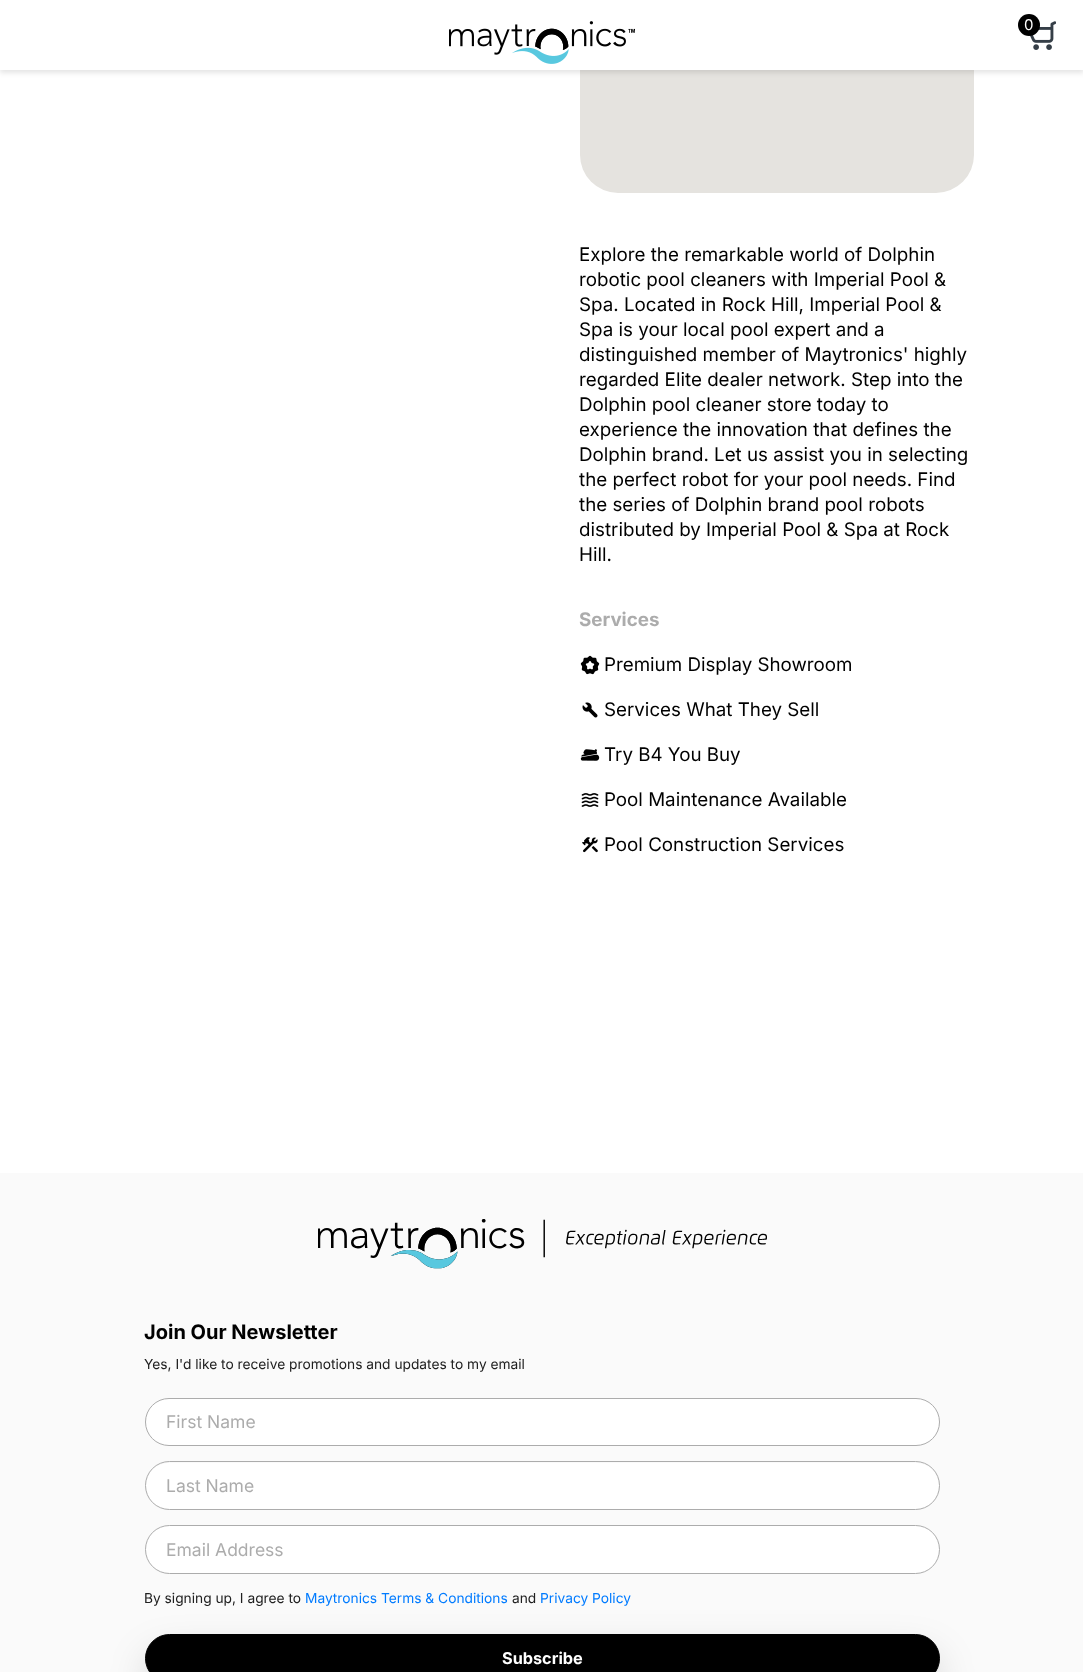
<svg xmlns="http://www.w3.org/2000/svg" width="1083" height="1672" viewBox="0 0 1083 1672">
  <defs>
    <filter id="blur1" x="-50%" y="-200%" width="200%" height="500%"><feGaussianBlur stdDeviation="2.5"/></filter>
    <filter id="blur2" x="-50%" y="-200%" width="200%" height="500%"><feGaussianBlur stdDeviation="19"/></filter>
  </defs>
  <rect width="100%" height="100%" fill="#ffffff"/>
  <rect x="580" y="-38" width="394" height="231" rx="38" fill="#e5e3df"/>
  <rect x="0" y="3" width="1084" height="70" fill="#000000" fill-opacity="0.1" filter="url(#blur1)"/>
  <rect x="0" y="0" width="1083" height="70" fill="#ffffff"/>
  <image x="449" y="21" width="186" height="43" href="img1.png"/>
  <image x="1029" y="21" width="27" height="29" href="img2.png"/>
  <circle cx="1029" cy="25" r="11" fill="#000000"/>
  <text x="1024" y="30" font-family="Inter" font-size="15" fill="#ffffff">0</text>
  <text x="579" y="261" font-family="Inter" font-size="18.75" fill="#000000">Explore the remarkable world of Dolphin</text>
  <text x="579" y="286" font-family="Inter" font-size="18.75" fill="#000000">robotic pool cleaners with Imperial Pool &amp;</text>
  <text x="579" y="311" font-family="Inter" font-size="18.75" fill="#000000">Spa. Located in Rock Hill, Imperial Pool &amp;</text>
  <text x="579" y="336" font-family="Inter" font-size="18.75" fill="#000000">Spa is your local pool expert and a</text>
  <text x="579" y="361" font-family="Inter" font-size="18.75" fill="#000000">distinguished member of Maytronics' highly</text>
  <text x="579" y="386" font-family="Inter" font-size="18.75" fill="#000000">regarded Elite dealer network. Step into the</text>
  <text x="579" y="411" font-family="Inter" font-size="18.75" fill="#000000">Dolphin pool cleaner store today to</text>
  <text x="579" y="436" font-family="Inter" font-size="18.75" fill="#000000">experience the innovation that defines the</text>
  <text x="579" y="461" font-family="Inter" font-size="18.75" fill="#000000">Dolphin brand. Let us assist you in selecting</text>
  <text x="579" y="486" font-family="Inter" font-size="18.75" fill="#000000">the perfect robot for your pool needs. Find</text>
  <text x="579" y="511" font-family="Inter" font-size="18.75" fill="#000000">the series of Dolphin brand pool robots</text>
  <text x="579" y="536" font-family="Inter" font-size="18.75" fill="#000000">distributed by Imperial Pool &amp; Spa at Rock</text>
  <text x="579" y="561" font-family="Inter" font-size="18.75" fill="#000000">Hill.</text>
  <text x="579" y="626" font-family="Inter" font-size="18.75" font-weight="bold" fill="#acacac">Services</text>
  <image x="580" y="655" width="20" height="20" href="img3.png"/>
  <text x="604" y="671" font-family="Inter" font-size="18.75" fill="#000000">Premium Display Showroom</text>
  <image x="582" y="702" width="16" height="16" href="img4.png"/>
  <text x="604" y="716" font-family="Inter" font-size="18.75" fill="#000000">Services What They Sell</text>
  <image x="580" y="749" width="20" height="12" href="img5.png"/>
  <text x="604" y="761" font-family="Inter" font-size="18.75" fill="#000000">Try B4 You Buy</text>
  <image x="581" y="793" width="18" height="14" href="img6.png"/>
  <text x="604" y="806" font-family="Inter" font-size="18.75" fill="#000000">Pool Maintenance Available</text>
  <image x="582" y="837" width="16" height="16" href="img7.png"/>
  <text x="604" y="851" font-family="Inter" font-size="18.75" fill="#000000">Pool Construction Services</text>
  <rect x="0" y="1173" width="1083" height="499" fill="#fafafa"/>
  <image x="318" y="1219" width="449" height="50" href="img8.png"/>
  <text x="144" y="1339" font-family="Inter" font-size="20" font-weight="bold" fill="#000000">Join Our Newsletter</text>
  <text x="144" y="1369" font-family="Inter" font-size="13.75" fill="#202020">Yes, I'd like to receive promotions and updates to my email</text>
  <rect x="145.5" y="1398.5" width="794" height="47" rx="23.5" fill="#ffffff" stroke="#acacac"/>
  <text x="166" y="1428" font-family="Inter" font-size="17.5" fill="#acacac">First Name</text>
  <rect x="146" y="1463" width="793" height="46" rx="23" fill="#ffffff"/>
  <rect x="145.5" y="1461.5" width="794" height="48" rx="24" fill="none" stroke="#acacac"/>
  <text x="166" y="1492" font-family="Inter" font-size="17.5" fill="#acacac">Last Name</text>
  <rect x="145.5" y="1525.5" width="794" height="48" rx="24" fill="#ffffff" stroke="#acacac"/>
  <text x="166" y="1556" font-family="Inter" font-size="17.5" fill="#acacac">Email Address</text>
  <text x="144" y="1603" font-family="Inter" font-size="13.75" fill="#202020">By signing up, I agree to</text>
  <text x="305" y="1603" font-family="Inter" font-size="13.75" fill="#007bff">Maytronics Terms &amp; Conditions</text>
  <text x="512" y="1603" font-family="Inter" font-size="13.75" fill="#202020">and</text>
  <text x="540" y="1603" font-family="Inter" font-size="13.75" fill="#007bff">Privacy Policy</text>
  <rect x="145" y="1653" width="795" height="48" rx="24" fill="#000000" fill-opacity="0.15" filter="url(#blur2)"/>
  <rect x="145.5" y="1634.5" width="794" height="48" rx="24" fill="#000000" stroke="#000000"/>
  <text x="502" y="1664" font-family="Inter" font-size="16.25" font-weight="bold" fill="#ffffff">Subscribe</text>
</svg>
